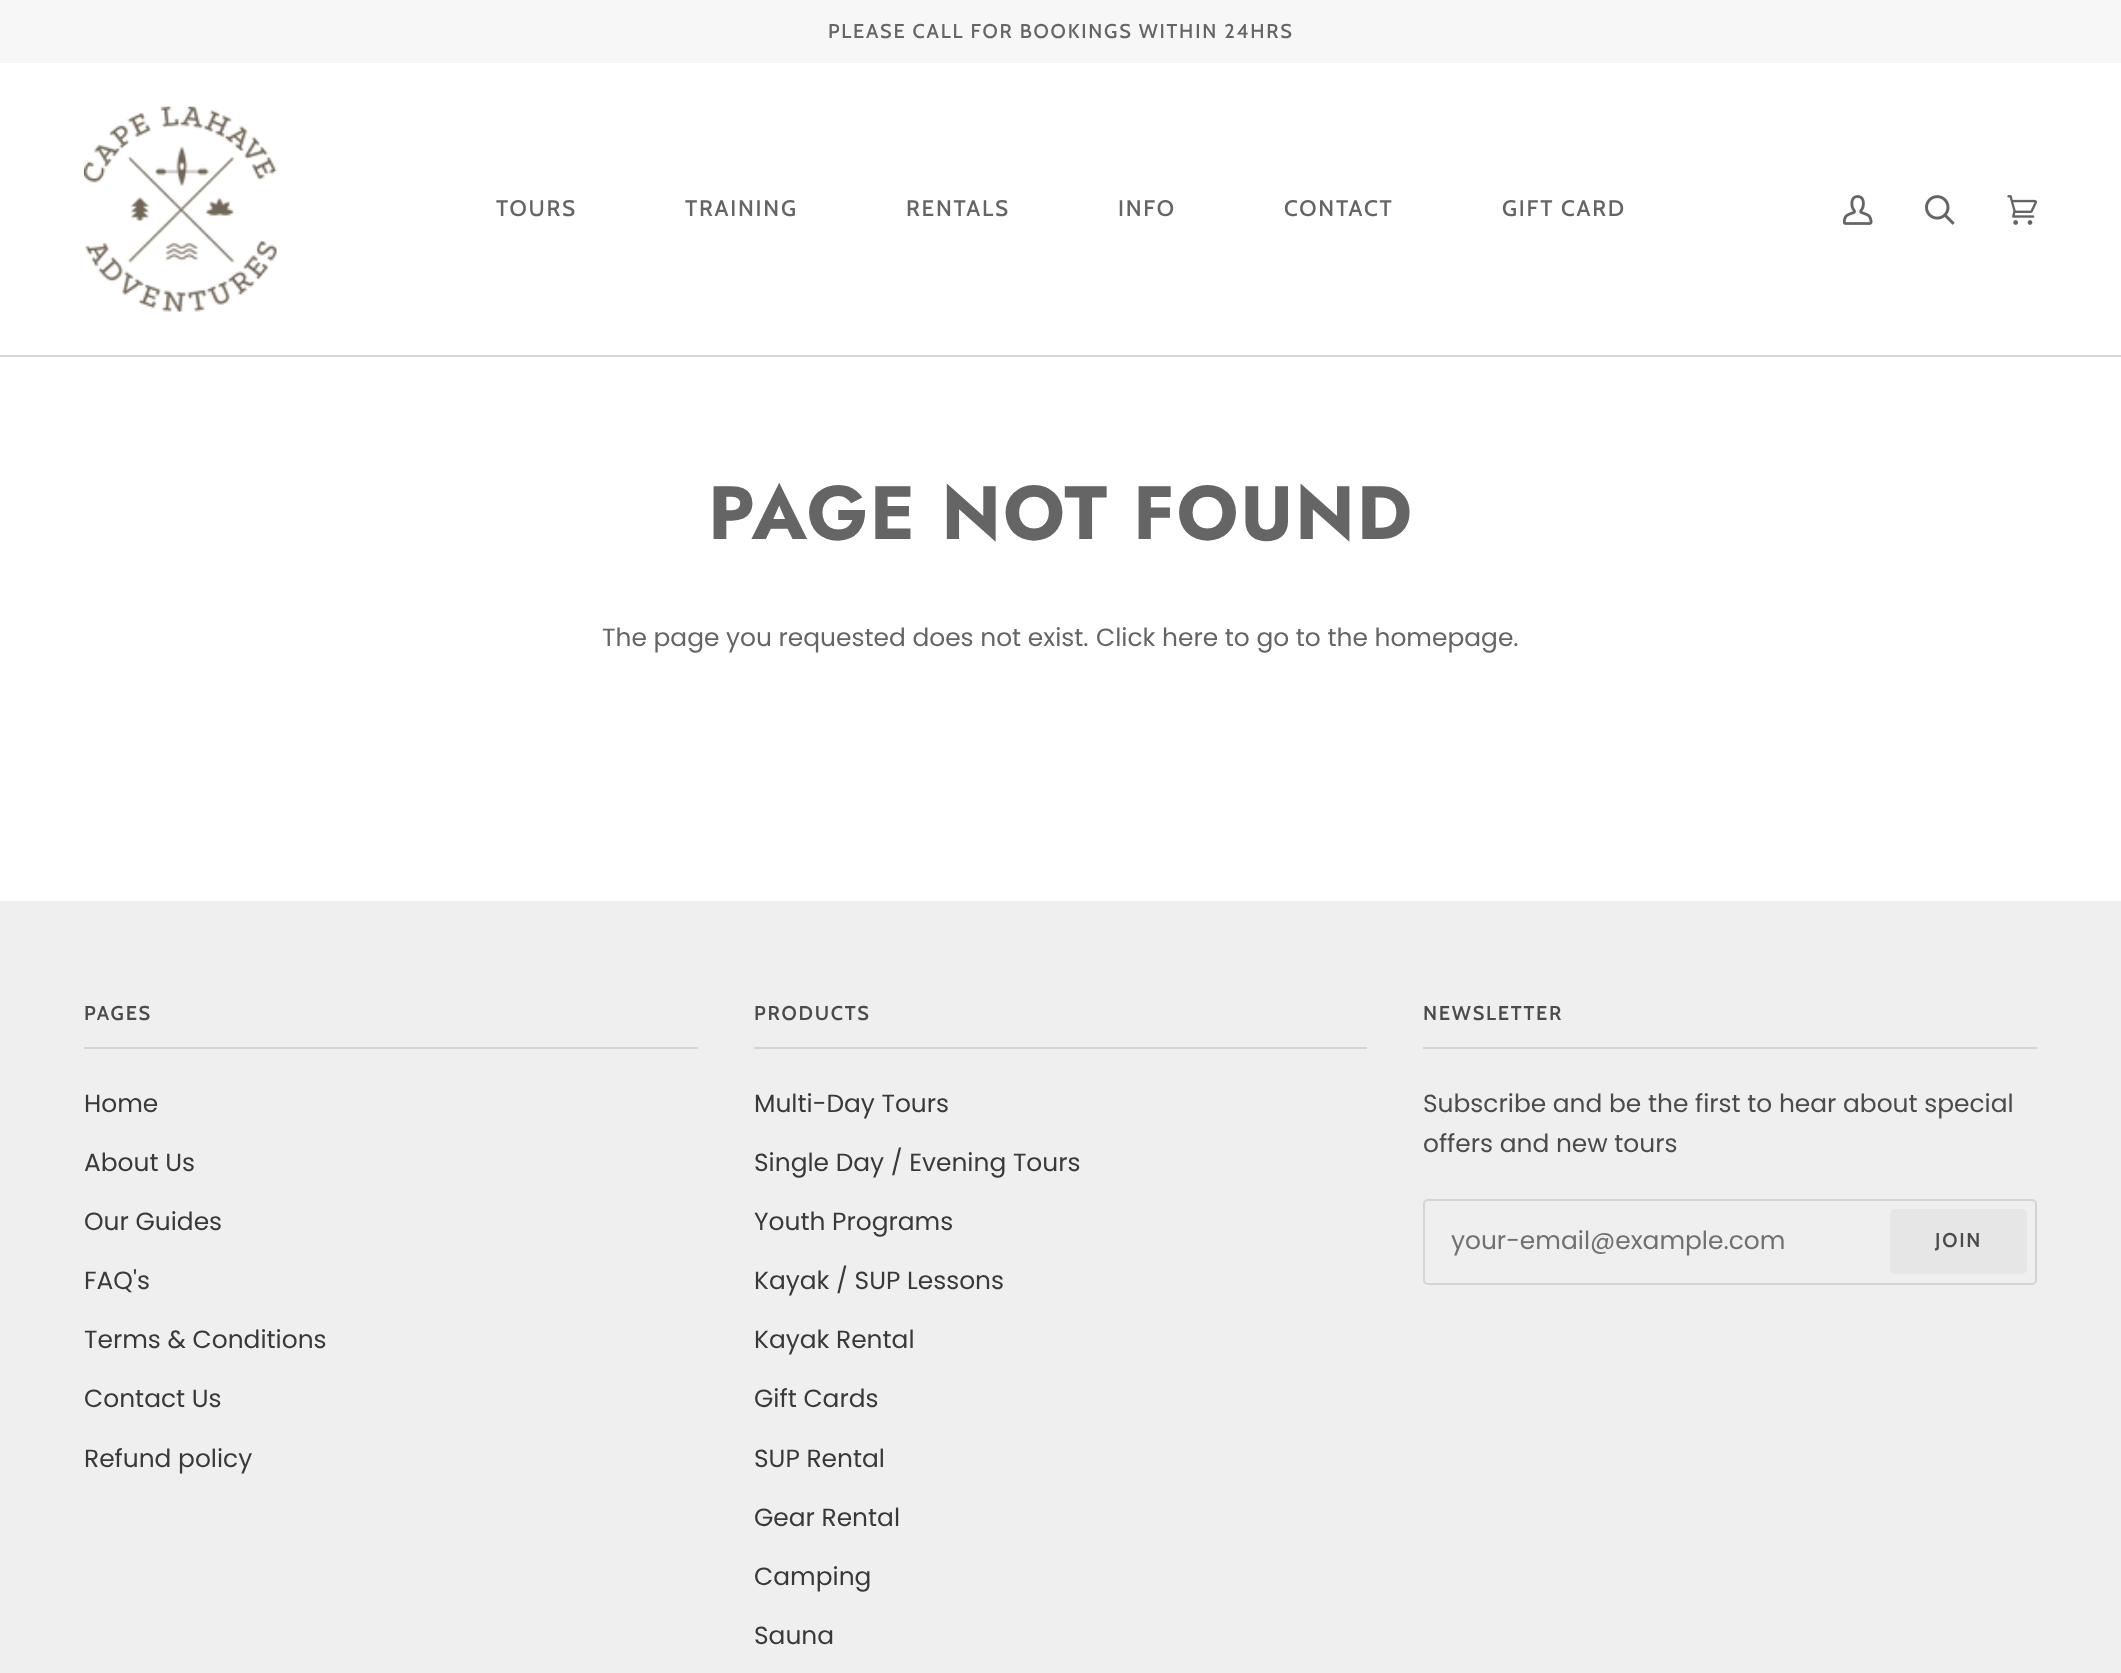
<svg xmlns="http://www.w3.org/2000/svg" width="2121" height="1673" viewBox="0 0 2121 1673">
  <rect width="100%" height="100%" fill="#ffffff"/>
  <rect x="0" y="0" width="2121" height="63" fill="#f7f7f7"/>
  <text x="828" y="38" font-family="Cabin" font-size="19.95" font-weight="500" letter-spacing="1.75" fill="#656565">PLEASE CALL FOR BOOKINGS WITHIN 24HRS</text>
  <rect x="0" y="355" width="2121" height="2" fill="#d7d7d7"/>
  <image x="84" y="106" width="193" height="206" href="img1.png"/>
  <text x="496" y="216" font-family="Cabin" font-size="22.5" font-weight="500" letter-spacing="1.75" fill="#656565">TOURS</text>
  <text x="685" y="216" font-family="Cabin" font-size="22.5" font-weight="500" letter-spacing="1.75" fill="#656565">TRAINING</text>
  <text x="906" y="216" font-family="Cabin" font-size="22.5" font-weight="500" letter-spacing="1.75" fill="#656565">RENTALS</text>
  <text x="1118" y="216" font-family="Cabin" font-size="22.5" font-weight="500" letter-spacing="1.75" fill="#656565">INFO</text>
  <text x="1284" y="216" font-family="Cabin" font-size="22.5" font-weight="500" letter-spacing="1.75" fill="#656565">CONTACT</text>
  <text x="1502" y="216" font-family="Cabin" font-size="22.5" font-weight="500" letter-spacing="1.75" fill="#656565">GIFT CARD</text>
  <image x="1843" y="195" width="30" height="30" href="img2.png"/>
  <image x="1925" y="195" width="30" height="30" href="img3.png"/>
  <image x="2007" y="195" width="30" height="30" href="img4.png"/>
  <text x="708" y="539" font-family="Jost" font-size="75.5" font-weight="bold" letter-spacing="1.75" fill="#656565">PAGE NOT FOUND</text>
  <text x="602" y="646" font-family="Poppins" font-size="24.9" fill="#656565">The page you requested does not exist.</text>
  <text x="1096" y="646" font-family="Poppins" font-size="24.9" fill="#656565">Click here to go to the homepage.</text>
  <rect x="0" y="901" width="2121" height="772" fill="#efefef"/>
  <rect x="84" y="1047" width="614" height="2" fill="#d4d4d4"/>
  <text x="84" y="1020" font-family="Cabin" font-size="19.95" font-weight="600" letter-spacing="1.75" fill="#4b4b4b">PAGES</text>
  <text x="84" y="1112" font-family="Poppins" font-size="24.9" fill="#393939">Home</text>
  <text x="84" y="1171" font-family="Poppins" font-size="24.9" fill="#393939">About Us</text>
  <text x="84" y="1230" font-family="Poppins" font-size="24.9" fill="#393939">Our Guides</text>
  <text x="84" y="1289" font-family="Poppins" font-size="24.9" fill="#393939">FAQ's</text>
  <text x="84" y="1348" font-family="Poppins" font-size="24.9" fill="#393939">Terms &amp; Conditions</text>
  <text x="84" y="1407" font-family="Poppins" font-size="24.9" fill="#393939">Contact Us</text>
  <text x="84" y="1467" font-family="Poppins" font-size="24.9" fill="#393939">Refund policy</text>
  <rect x="754" y="1047" width="613" height="2" fill="#d4d4d4"/>
  <text x="754" y="1020" font-family="Cabin" font-size="19.95" font-weight="600" letter-spacing="1.75" fill="#4b4b4b">PRODUCTS</text>
  <text x="754" y="1112" font-family="Poppins" font-size="24.9" fill="#393939">Multi-Day Tours</text>
  <text x="754" y="1171" font-family="Poppins" font-size="24.9" fill="#393939">Single Day / Evening Tours</text>
  <text x="754" y="1230" font-family="Poppins" font-size="24.9" fill="#393939">Youth Programs</text>
  <text x="754" y="1289" font-family="Poppins" font-size="24.9" fill="#393939">Kayak / SUP Lessons</text>
  <text x="754" y="1348" font-family="Poppins" font-size="24.9" fill="#393939">Kayak Rental</text>
  <text x="754" y="1407" font-family="Poppins" font-size="24.9" fill="#393939">Gift Cards</text>
  <text x="754" y="1467" font-family="Poppins" font-size="24.9" fill="#393939">SUP Rental</text>
  <text x="754" y="1526" font-family="Poppins" font-size="24.9" fill="#393939">Gear Rental</text>
  <text x="754" y="1585" font-family="Poppins" font-size="24.9" fill="#393939">Camping</text>
  <text x="754" y="1644" font-family="Poppins" font-size="24.9" fill="#393939">Sauna</text>
  <rect x="1423" y="1047" width="614" height="2" fill="#d4d4d4"/>
  <text x="1423" y="1020" font-family="Cabin" font-size="19.95" font-weight="600" letter-spacing="1.75" fill="#4b4b4b">NEWSLETTER</text>
  <text x="1423" y="1112" font-family="Poppins" font-size="24.9" fill="#4b4b4b">Subscribe and be the first to hear about special</text>
  <text x="1423" y="1152" font-family="Poppins" font-size="24.9" fill="#4b4b4b">offers and new tours</text>
  <rect x="1424" y="1200" width="612" height="84" rx="4" fill="none" stroke="#d4d4d4" stroke-width="2"/>
  <text x="1451" y="1249" font-family="Poppins" font-size="24.9" fill="#707070">your-email@example.com</text>
  <rect x="1890" y="1209" width="137" height="65" rx="5" fill="#e6e6e6"/>
  <text x="1935" y="1247" font-family="Cabin" font-size="19.95" font-weight="600" letter-spacing="1.75" fill="#4b4b4b">JOIN</text>
</svg>
